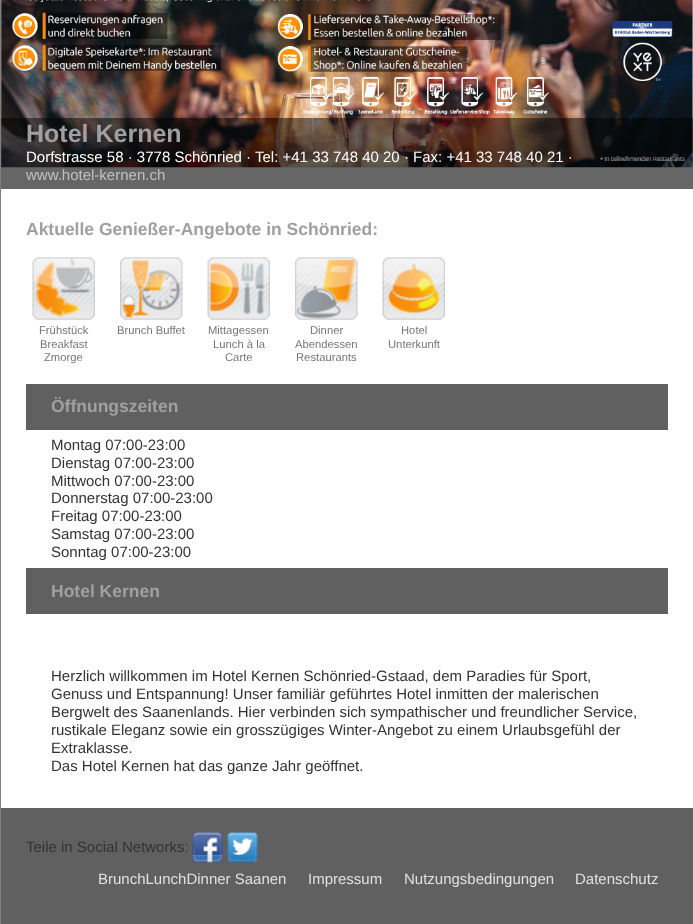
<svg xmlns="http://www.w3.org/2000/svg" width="693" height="924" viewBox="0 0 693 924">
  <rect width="100%" height="100%" fill="#ffffff"/>
  <rect x="0.5" y="-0.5" width="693" height="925" fill="none" stroke="#808080"/>
  <rect x="1" y="0" width="692" height="189" fill="#cccccc"/>
  <image x="1" y="0" width="692" height="168" href="img1.png"/>
  <rect x="1" y="118" width="692" height="71" fill="#000000" fill-opacity="0.5"/>
  <text x="26" y="142" font-family="Liberation Sans" font-size="25" font-weight="bold" fill="#a0a0a0">Hotel Kernen</text>
  <text x="26" y="162" font-family="Liberation Sans" font-size="15" fill="#ffffff">Dorfstrasse 58 · 3778 Schönried · Tel: +41 33 748 40 20 · Fax: +41 33 748 40 21 ·</text>
  <text x="26" y="180" font-family="Liberation Sans" font-size="15" fill="#c0c0c0">www.hotel-kernen.ch</text>
  <text x="26" y="235" font-family="Liberation Sans" font-size="17.5" font-weight="bold" fill="#a0a0a0">Aktuelle Genießer-Angebote in Schönried:</text>
  <image x="32" y="257" width="63" height="63" href="img2.png"/>
  <text x="39" y="334" font-family="Liberation Sans" font-size="11.25" fill="#777777">Frühstück</text>
  <text x="40" y="348" font-family="Liberation Sans" font-size="11.25" fill="#777777">Breakfast</text>
  <text x="44" y="361" font-family="Liberation Sans" font-size="11.25" fill="#777777">Zmorge</text>
  <image x="120" y="257" width="63" height="63" href="img3.png"/>
  <text x="117" y="334" font-family="Liberation Sans" font-size="11.25" fill="#777777">Brunch Buffet</text>
  <image x="207" y="257" width="63" height="63" href="img4.png"/>
  <text x="208" y="334" font-family="Liberation Sans" font-size="11.25" fill="#777777">Mittagessen</text>
  <text x="213" y="348" font-family="Liberation Sans" font-size="11.25" fill="#777777">Lunch à la</text>
  <text x="225" y="361" font-family="Liberation Sans" font-size="11.25" fill="#777777">Carte</text>
  <image x="295" y="257" width="63" height="63" href="img5.png"/>
  <text x="310" y="334" font-family="Liberation Sans" font-size="11.25" fill="#777777">Dinner</text>
  <text x="295" y="348" font-family="Liberation Sans" font-size="11.25" fill="#777777">Abendessen</text>
  <text x="296" y="361" font-family="Liberation Sans" font-size="11.25" fill="#777777">Restaurants</text>
  <image x="382" y="257" width="63" height="63" href="img6.png"/>
  <text x="401" y="334" font-family="Liberation Sans" font-size="11.25" fill="#777777">Hotel</text>
  <text x="388" y="348" font-family="Liberation Sans" font-size="11.25" fill="#777777">Unterkunft</text>
  <rect x="26" y="384" width="642" height="46" fill="#606060"/>
  <text x="51" y="412" font-family="Liberation Sans" font-size="17.5" font-weight="bold" fill="#a0a0a0">Öffnungszeiten</text>
  <text x="51" y="450" font-family="Liberation Sans" font-size="15" fill="#333333">Montag 07:00-23:00</text>
  <text x="51" y="468" font-family="Liberation Sans" font-size="15" fill="#333333">Dienstag 07:00-23:00</text>
  <text x="51" y="486" font-family="Liberation Sans" font-size="15" fill="#333333">Mittwoch 07:00-23:00</text>
  <text x="51" y="503" font-family="Liberation Sans" font-size="15" fill="#333333">Donnerstag 07:00-23:00</text>
  <text x="51" y="521" font-family="Liberation Sans" font-size="15" fill="#333333">Freitag 07:00-23:00</text>
  <text x="51" y="539" font-family="Liberation Sans" font-size="15" fill="#333333">Samstag 07:00-23:00</text>
  <text x="51" y="557" font-family="Liberation Sans" font-size="15" fill="#333333">Sonntag 07:00-23:00</text>
  <rect x="26" y="568" width="642" height="46" fill="#606060"/>
  <text x="51" y="597" font-family="Liberation Sans" font-size="17.5" font-weight="bold" fill="#a0a0a0">Hotel Kernen</text>
  <text x="51" y="681" font-family="Liberation Sans" font-size="15" fill="#333333">Herzlich willkommen im Hotel Kernen Schönried-Gstaad, dem Paradies für Sport,</text>
  <text x="51" y="699" font-family="Liberation Sans" font-size="15" fill="#333333">Genuss und Entspannung! Unser familiär geführtes Hotel inmitten der malerischen</text>
  <text x="51" y="717" font-family="Liberation Sans" font-size="15" fill="#333333">Bergwelt des Saanenlands. Hier verbinden sich sympathischer und freundlicher Service,</text>
  <text x="51" y="735" font-family="Liberation Sans" font-size="15" fill="#333333">rustikale Eleganz sowie ein grosszügiges Winter-Angebot zu einem Urlaubsgefühl der</text>
  <text x="51" y="753" font-family="Liberation Sans" font-size="15" fill="#333333">Extraklasse.</text>
  <text x="51" y="771" font-family="Liberation Sans" font-size="15" fill="#333333">Das Hotel Kernen hat das ganze Jahr geöffnet.</text>
  <rect x="1" y="808" width="692" height="116" fill="#606060"/>
  <text x="26" y="852" font-family="Liberation Sans" font-size="15" fill="#333333">Teile in Social Networks:</text>
  <image x="192" y="832" width="31" height="31" href="img7.png"/>
  <image x="227" y="832" width="31" height="31" href="img8.png"/>
  <text x="98" y="884" font-family="Liberation Sans" font-size="15" fill="#e0e0e0">BrunchLunchDinner Saanen</text>
  <text x="308" y="884" font-family="Liberation Sans" font-size="15" fill="#e0e0e0">Impressum</text>
  <text x="404" y="884" font-family="Liberation Sans" font-size="15" fill="#e0e0e0">Nutzungsbedingungen</text>
  <text x="575" y="884" font-family="Liberation Sans" font-size="15" fill="#e0e0e0">Datenschutz</text>
</svg>
